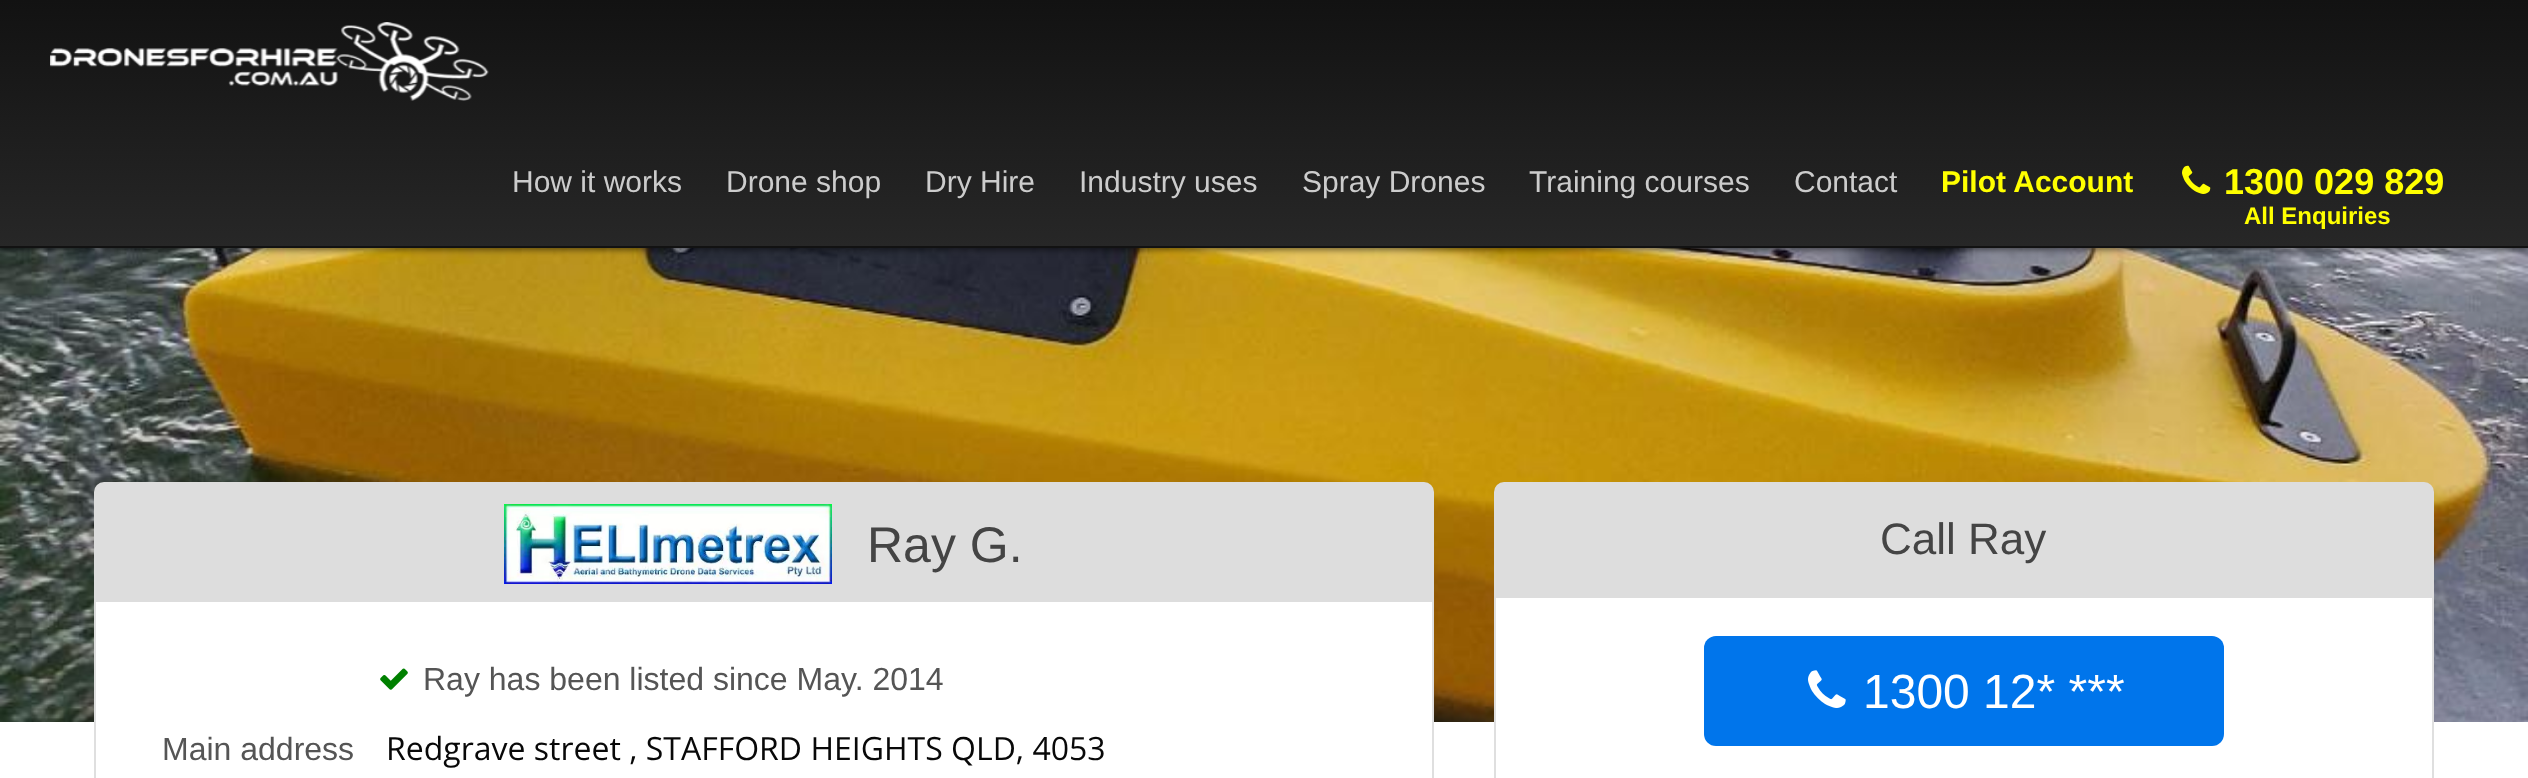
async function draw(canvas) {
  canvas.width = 2528
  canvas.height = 778
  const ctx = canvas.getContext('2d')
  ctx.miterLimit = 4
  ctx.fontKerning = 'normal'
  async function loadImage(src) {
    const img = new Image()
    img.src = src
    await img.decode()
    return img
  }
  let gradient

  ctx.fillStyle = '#fff'
  ctx.fillRect(0, 0, 2528, 778)
  ctx.drawImage(await loadImage('image2.png'), 0, 248, 2528, 474)
  ctx.fillStyle = '#00000080'
  ctx.filter = 'blur(3px)'
  ctx.beginPath()
  ctx.rect(0, 2, 2528, 248)
  ctx.fill()
  ctx.filter = 'none'
  ctx.fillStyle = '#121212'
  ctx.fillRect(0, 246, 2528, 2)
  gradient = ctx.createLinearGradient(0, 0, 0, 246)
  gradient.addColorStop(0, '#121212')
  gradient.addColorStop(1, '#272727')
  ctx.fillStyle = gradient
  ctx.fillRect(0, 0, 2528, 246)
  ctx.drawImage(await loadImage('image0.png'), 50, 22, 439, 79)
  ctx.font = '30px Liberation Sans'
  ctx.fillStyle = '#ccc'
  ctx.fillText('How it works', 512, 192)
  ctx.fillText('Drone shop', 726, 192)
  ctx.fillText('Dry Hire', 925, 192)
  ctx.fillText('Industry uses', 1079, 192)
  ctx.fillText('Spray Drones', 1302, 192)
  ctx.fillText('Training courses', 1529, 192)
  ctx.fillText('Contact', 1794, 192)
  ctx.font = 'bold 30px Liberation Sans'
  ctx.fillStyle = '#ff0'
  ctx.fillText('Pilot Account', 1941, 192)
  ctx.drawImage(await loadImage('image1.png'), 2182, 165, 29, 29)
  ctx.font = 'bold 36px Liberation Sans'
  ctx.fillText('1300 029 829', 2224, 194)
  ctx.font = 'bold 24px Liberation Sans'
  ctx.fillText('All Enquiries', 2244, 224)
  ctx.fillStyle = '#ddd'
  ctx.beginPath()
  ctx.roundRect(94, 482, 1340, 120, [10, 10, 0, 0])
  ctx.fill()
  ctx.drawImage(await loadImage('image3.png'), 504, 504, 328, 80)
  ctx.font = '50px Liberation Sans'
  ctx.fillStyle = '#444'
  ctx.fillText('Ray G.', 867, 562)
  ctx.fillStyle = '#fff'
  ctx.fillRect(96, 602, 1336, 120)
  ctx.fillStyle = '#dfdfdf'
  ctx.fillRect(1432, 602, 2, 176)
  ctx.fillRect(94, 602, 2, 176)
  ctx.drawImage(await loadImage('image4.png'), 380, 668, 28, 22)
  ctx.font = '32px Liberation Sans'
  ctx.fillStyle = '#555'
  ctx.fillText('Ray has been listed since May. 2014', 423, 690)
  ctx.fillText('Main address', 162, 760)
  ctx.font = '32px Open Sans'
  ctx.fillStyle = '#080808'
  ctx.fillText('Redgrave street , STAFFORD HEIGHTS QLD, 4053', 386, 760)
  ctx.fillStyle = '#ddd'
  ctx.beginPath()
  ctx.roundRect(1494, 482, 940, 116, [10, 10, 0, 0])
  ctx.fill()
  ctx.font = '44px Liberation Sans'
  ctx.fillStyle = '#444'
  ctx.fillText('Call Ray', 1880, 554)
  ctx.fillStyle = '#fff'
  ctx.fillRect(1496, 598, 936, 124)
  ctx.fillStyle = '#dfdfdf'
  ctx.fillRect(2432, 598, 2, 180)
  ctx.fillRect(1494, 598, 2, 180)
  ctx.fillStyle = '#0075eb'
  ctx.beginPath()
  ctx.roundRect(1704, 636, 520, 110, 12)
  ctx.fill()
  ctx.drawImage(await loadImage('image5.png'), 1808, 670, 38, 38)
  ctx.font = '48px Liberation Sans'
  ctx.fillStyle = '#fff'
  ctx.fillText('1300 12* ***', 1863, 708)
}

draw(document.querySelector('canvas'))
